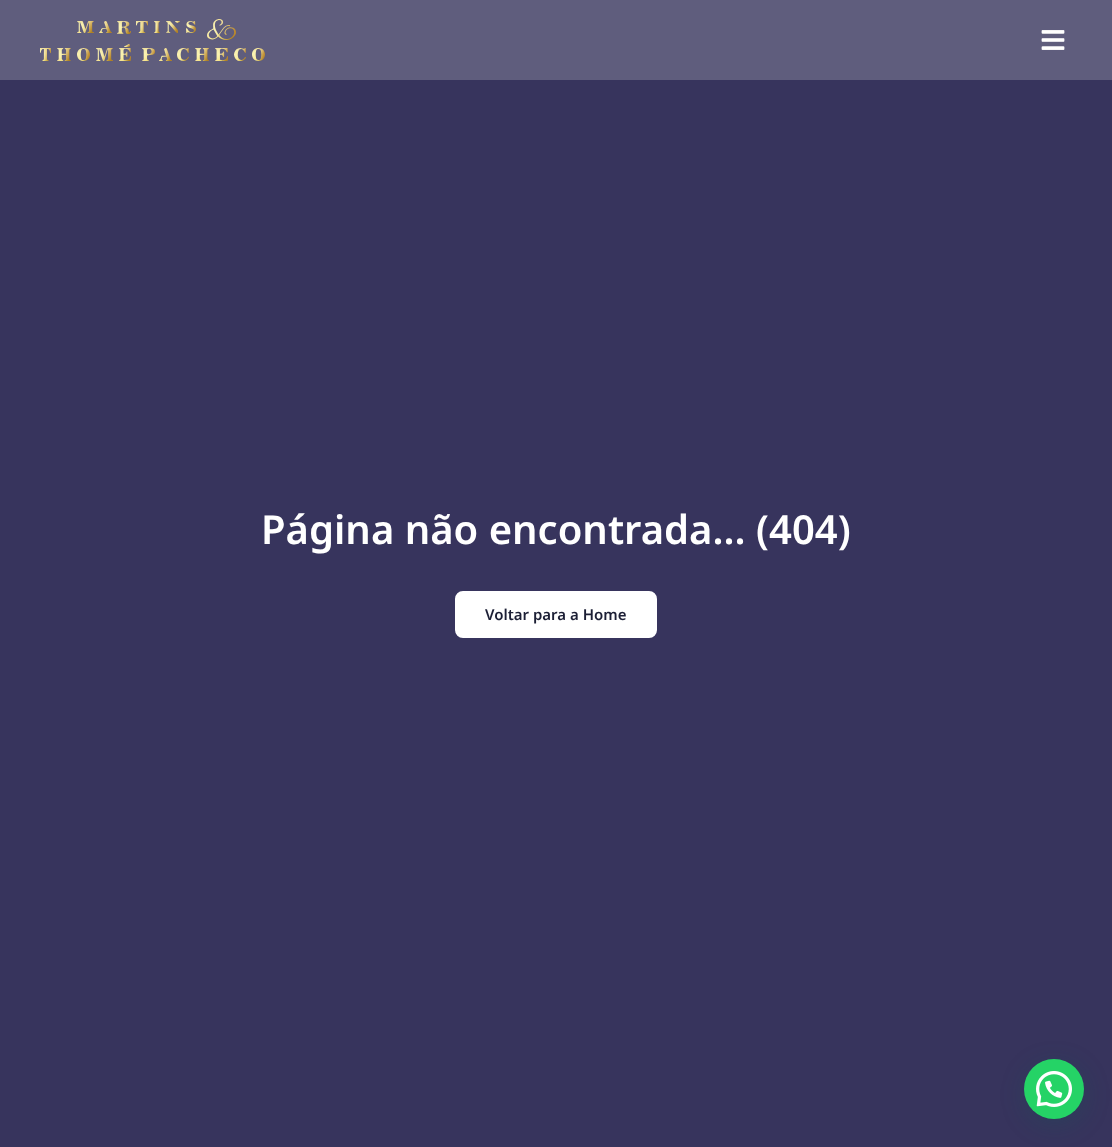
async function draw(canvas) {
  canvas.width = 1112
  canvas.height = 1147
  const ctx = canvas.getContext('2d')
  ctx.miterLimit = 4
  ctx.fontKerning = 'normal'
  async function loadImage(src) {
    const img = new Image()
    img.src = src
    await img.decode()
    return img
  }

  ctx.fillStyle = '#37345d'
  ctx.fillRect(0, 0, 1112, 1147)
  ctx.fillStyle = '#5f5d7d'
  ctx.fillRect(0, 0, 1112, 80)
  ctx.drawImage(await loadImage('image0.png'), 40, 19, 225, 42)
  ctx.drawImage(await loadImage('image1.png'), 1041, 30, 24, 20)
  ctx.font = '600 40px Noto Sans'
  ctx.fillStyle = '#fff'
  ctx.fillText('Página não encontrada... (404)', 261, 544)
  ctx.beginPath()
  ctx.roundRect(456, 592, 200, 45, 7)
  ctx.fill()
  ctx.strokeStyle = '#fff'
  ctx.lineWidth = 2
  ctx.stroke()
  ctx.font = '600 15px Noto Sans'
  ctx.fillStyle = '#1c1f35'
  ctx.fillText('Voltar para a Home', 485, 620)
  ctx.fillStyle = '#075e543d'
  ctx.filter = 'blur(12px)'
  ctx.beginPath()
  ctx.roundRect(1025, 1065, 60, 60, 30)
  ctx.fill()
  ctx.filter = 'none'
  ctx.fillStyle = '#25d366'
  ctx.beginPath()
  ctx.arc(1054, 1089, 30, 0, 2 * Math.PI)
  ctx.fill()
  ctx.drawImage(await loadImage('image2.png'), 1036, 1071, 36, 36)
}

draw(document.querySelector('canvas'))
